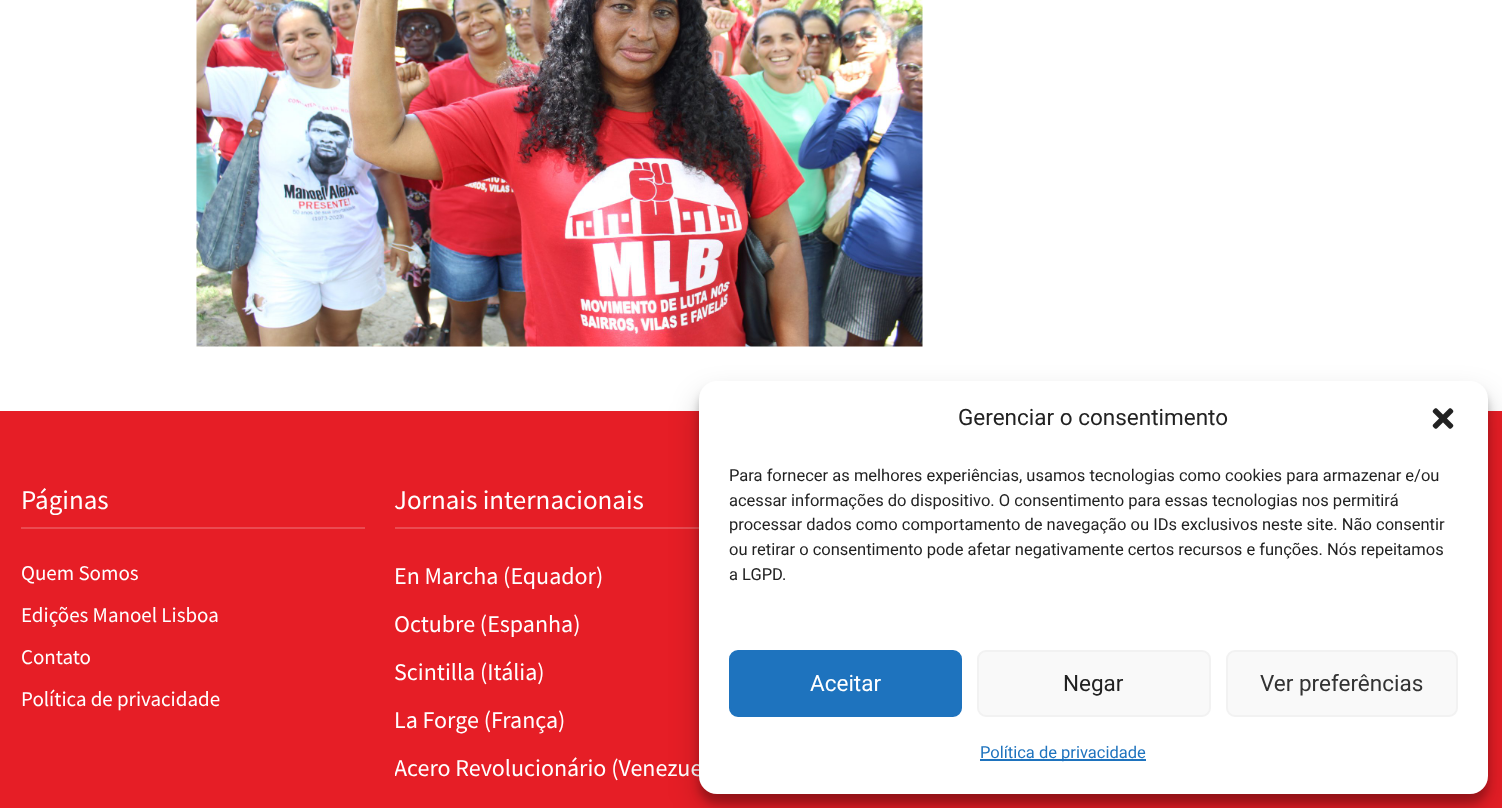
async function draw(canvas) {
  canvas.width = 1502
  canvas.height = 808
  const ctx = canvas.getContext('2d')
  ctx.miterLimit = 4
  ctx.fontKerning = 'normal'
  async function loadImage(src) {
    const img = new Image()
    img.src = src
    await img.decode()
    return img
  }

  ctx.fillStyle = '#fff'
  ctx.fillRect(0, 0, 1502, 808)
  ctx.drawImage(await loadImage('image0.png'), 196, 0, 727, 347)
  ctx.fillStyle = '#e61e26'
  ctx.fillRect(0, 411, 1502, 397)
  ctx.fillStyle = '#eb4b51'
  ctx.fillRect(21, 527, 344, 2)
  ctx.font = '27px Source Sans Pro'
  ctx.fillStyle = '#fff'
  ctx.fillText('Páginas', 21, 509)
  ctx.font = '21px Source Sans Pro'
  ctx.fillText('Quem Somos', 21, 580)
  ctx.fillText('Edições Manoel Lisboa', 21, 622)
  ctx.fillText('Contato', 21, 664)
  ctx.fillText('Política de privacidade', 21, 706)
  ctx.fillStyle = '#eb4b51'
  ctx.fillRect(395, 527, 304, 2)
  ctx.font = '27px Source Sans Pro'
  ctx.fillStyle = '#fff'
  ctx.fillText('Jornais internacionais', 394, 509)
  ctx.font = '24px Source Sans Pro'
  ctx.fillText('En Marcha (Equador)', 394, 584)
  ctx.fillText('Octubre (Espanha)', 394, 632)
  ctx.fillText('Scintilla (Itália)', 394, 680)
  ctx.fillText('La Forge (França)', 394, 728)
  ctx.save()
  ctx.beginPath()
  ctx.rect(395, 551, 342, 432)
  ctx.clip()
  ctx.fillText('Acero Revolucionário (Venezue', 394, 776)
  ctx.restore()
  ctx.fillStyle = '#0000003b'
  ctx.filter = 'blur(4.5px)'
  ctx.beginPath()
  ctx.roundRect(699, 390, 789, 413, 18)
  ctx.fill()
  ctx.filter = 'none'
  ctx.fillStyle = '#00000030'
  ctx.filter = 'blur(15px)'
  ctx.beginPath()
  ctx.roundRect(699, 396, 789, 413, 18)
  ctx.fill()
  ctx.filter = 'none'
  ctx.fillStyle = '#fff'
  ctx.beginPath()
  ctx.roundRect(699, 381, 789, 413, 18)
  ctx.fill()
  ctx.font = '22.5px Roboto'
  ctx.fillStyle = '#222'
  ctx.fillText('Gerenciar o consentimento', 958, 425)
  ctx.drawImage(await loadImage('image1.png'), 1432, 408, 22, 21)
  ctx.font = '16.5px Roboto'
  ctx.fillText('Para fornecer as melhores experiências, usamos tecnologias como cookies para armazenar e/ou', 729, 481)
  ctx.fillText('acessar informações do dispositivo. O consentimento para essas tecnologias nos permitirá', 729, 506)
  ctx.fillText('processar dados como comportamento de navegação ou IDs exclusivos neste site. Não consentir', 729, 530)
  ctx.fillText('ou retirar o consentimento pode afetar negativamente certos recursos e funções. Nós repeitamos', 729, 555)
  ctx.fillText('a LGPD.', 729, 580)
  ctx.fillStyle = '#1e73be'
  ctx.beginPath()
  ctx.roundRect(730, 651, 231, 65, 8)
  ctx.fill()
  ctx.strokeStyle = '#1e73be'
  ctx.lineWidth = 2
  ctx.stroke()
  ctx.font = '22.5px Roboto'
  ctx.fillStyle = '#fff'
  ctx.fillText('Aceitar', 810, 691)
  ctx.fillStyle = '#f9f9f9'
  ctx.beginPath()
  ctx.roundRect(978, 651, 232, 65, 8)
  ctx.fill()
  ctx.strokeStyle = '#f2f2f2'
  ctx.stroke()
  ctx.fillStyle = '#222'
  ctx.fillText('Negar', 1063, 691)
  ctx.fillStyle = '#f9f9f9'
  ctx.beginPath()
  ctx.roundRect(1227, 651, 230, 65, 8)
  ctx.fill()
  ctx.stroke()
  ctx.fillStyle = '#333'
  ctx.fillText('Ver preferências', 1260, 691)
  ctx.fillStyle = '#1e73be'
  ctx.fillRect(980, 759, 166, 2)
  ctx.font = '16.5px Roboto'
  ctx.fillText('Política de privacidade', 980, 758)
}

draw(document.querySelector('canvas'))
